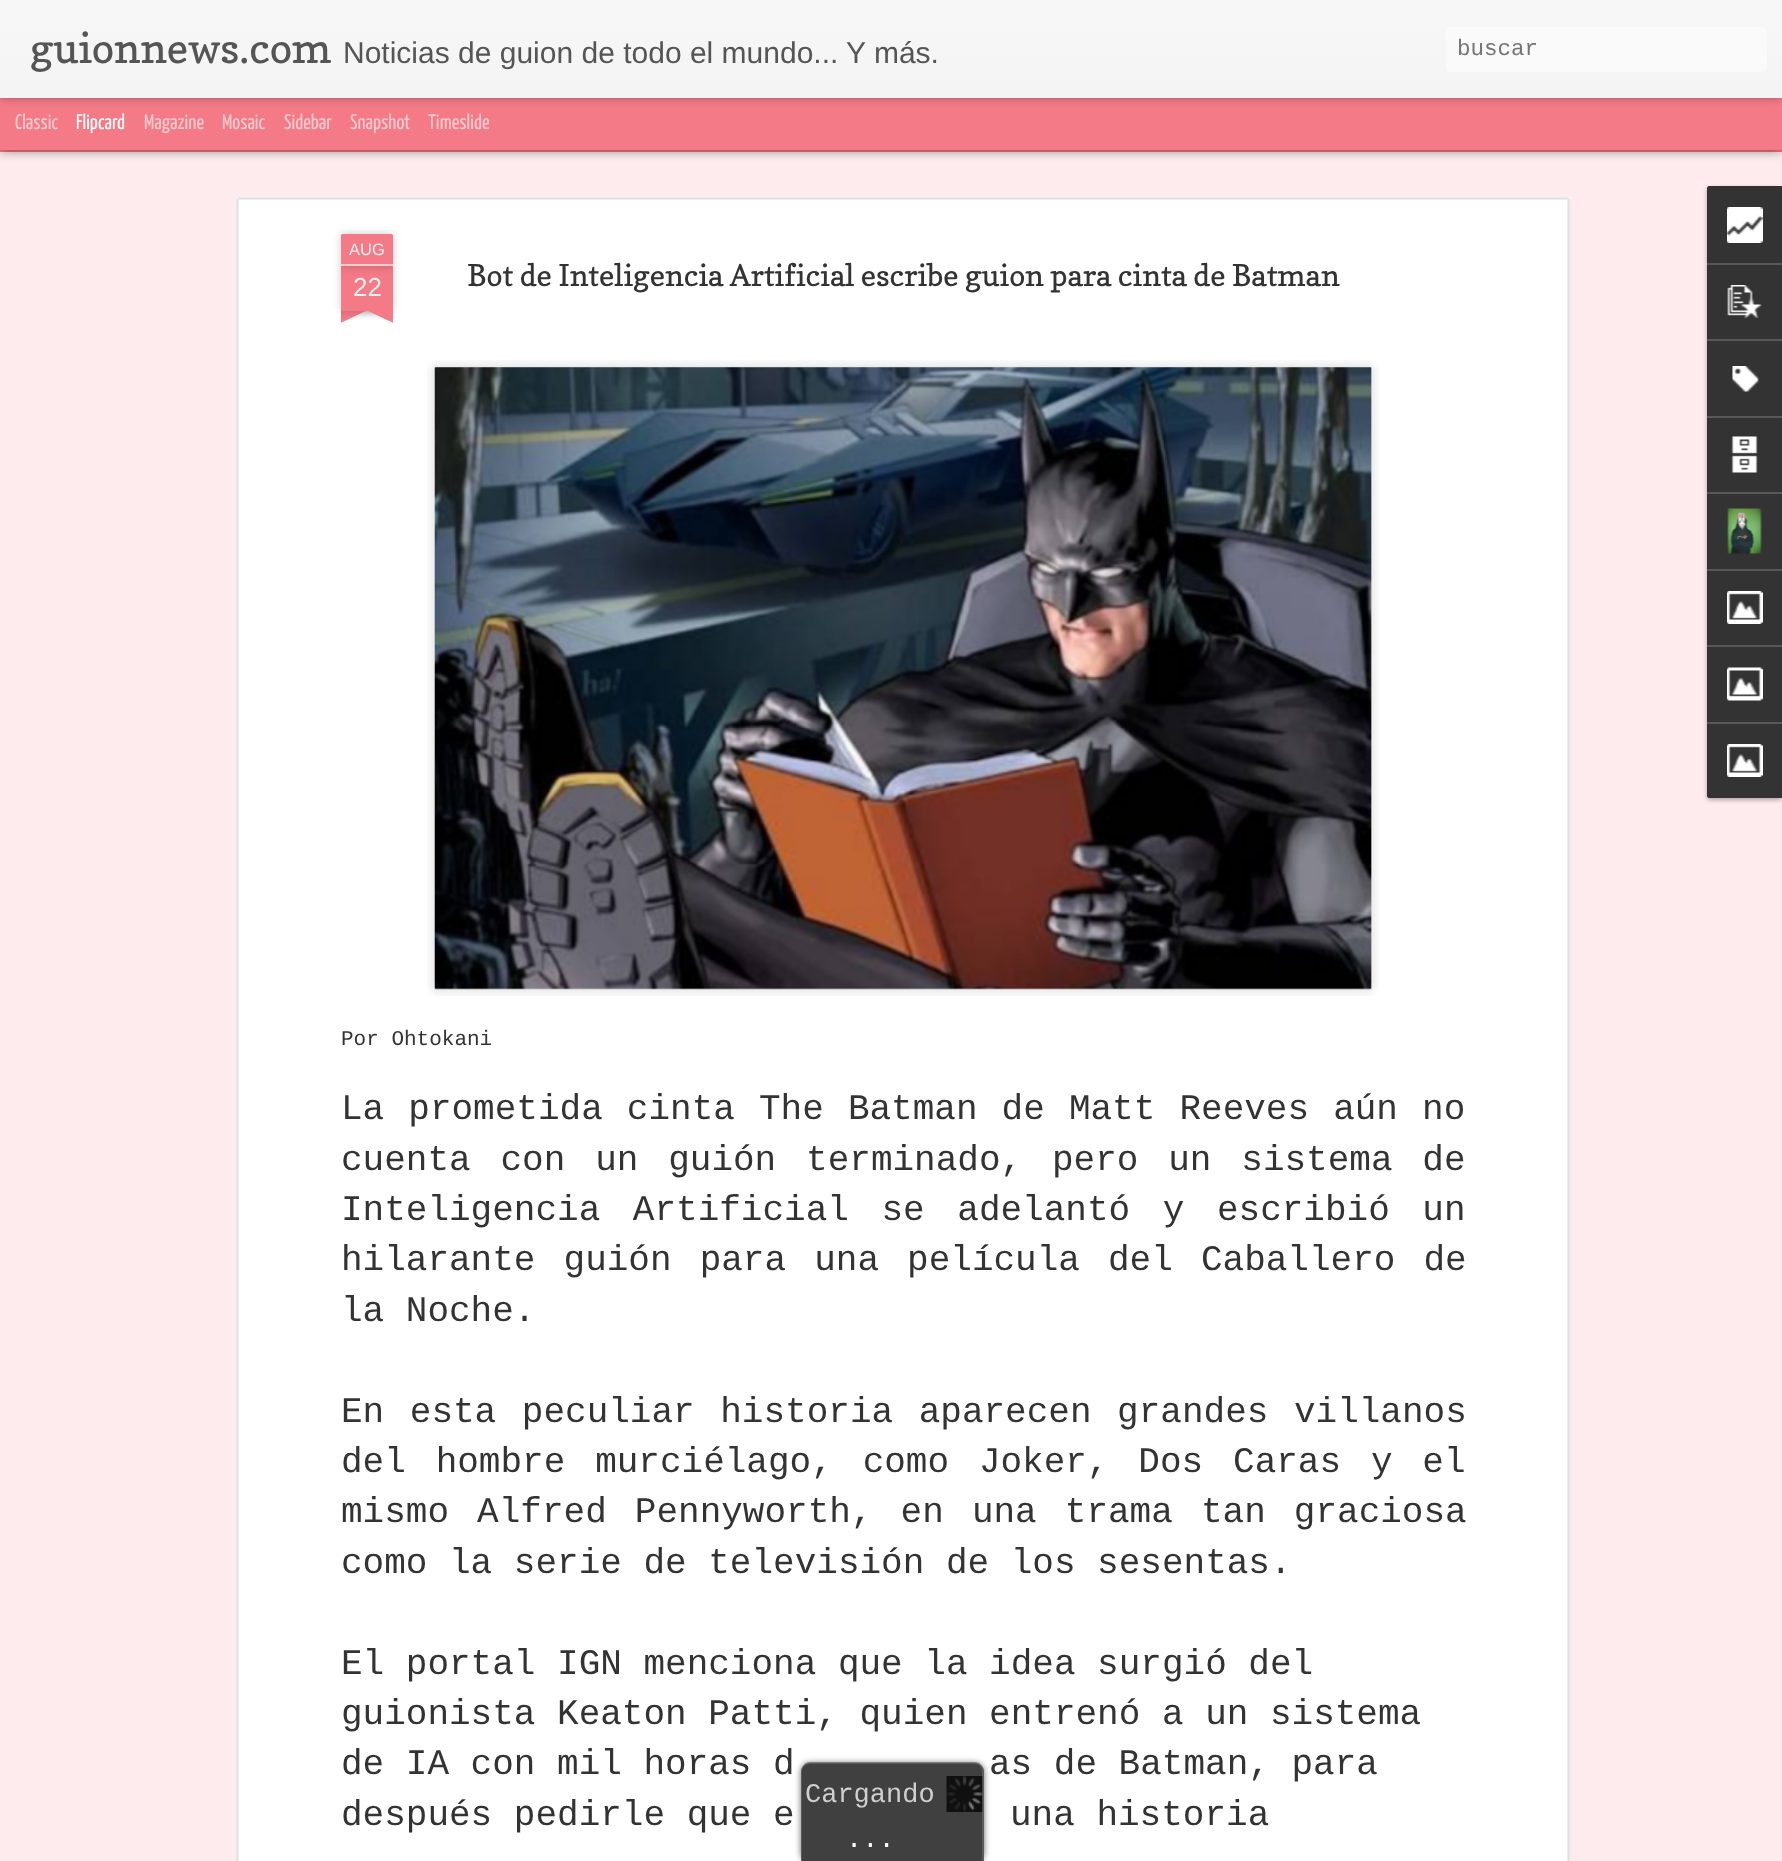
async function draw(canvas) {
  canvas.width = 1782
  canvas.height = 1861
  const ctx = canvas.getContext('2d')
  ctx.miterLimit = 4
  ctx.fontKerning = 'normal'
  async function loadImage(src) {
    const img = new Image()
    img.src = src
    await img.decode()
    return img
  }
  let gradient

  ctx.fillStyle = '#f37a86'
  ctx.fillRect(0, 0, 1782, 1861)
  ctx.fillStyle = '#fdebed'
  ctx.fillRect(0, 152, 1782, 1709)
  ctx.fillStyle = '#00000080'
  ctx.filter = 'blur(6px)'
  ctx.beginPath()
  ctx.rect(0, 98, 1782, 52)
  ctx.fill()
  ctx.filter = 'none'
  ctx.fillStyle = '#f37a86'
  ctx.fillRect(0, 98, 1782, 52)
  ctx.fillStyle = '#0000004d'
  ctx.filter = 'blur(4px)'
  ctx.beginPath()
  ctx.rect(0, 0, 1782, 98)
  ctx.fill()
  ctx.filter = 'none'
  gradient = ctx.createLinearGradient(0, 0, 0, 98)
  gradient.addColorStop(0, '#f7f7f7')
  gradient.addColorStop(1, '#f4f4f4')
  ctx.fillStyle = gradient
  ctx.fillRect(0, 0, 1782, 98)
  ctx.font = '42px Copse'
  ctx.fillStyle = '#555'
  ctx.fillText('guionnews.com', 30, 63)
  ctx.font = '30px Liberation Sans'
  ctx.fillText('Noticias de guion de todo el mundo... Y más.', 343, 63)
  ctx.fillStyle = '#fafafa'
  ctx.beginPath()
  ctx.roundRect(1446, 27, 321, 45, 5)
  ctx.fill()
  ctx.font = '22.5px Liberation Mono'
  ctx.fillStyle = '#757575'
  ctx.fillText('buscar', 1457, 55)
  ctx.font = '200 21px Yanone Kaffeesatz'
  ctx.fillStyle = '#facacf'
  ctx.fillText('Classic', 15, 129)
  ctx.fillStyle = '#fff'
  ctx.fillText('Flipcard', 76, 129)
  ctx.fillStyle = '#facacf'
  ctx.fillText('Magazine', 144, 129)
  ctx.fillText('Mosaic', 222, 129)
  ctx.fillText('Sidebar', 284, 129)
  ctx.fillText('Snapshot', 350, 129)
  ctx.fillText('Timeslide', 428, 129)
  ctx.fillStyle = '#fff'
  ctx.fillRect(236, 197, 1335, 1664)
  ctx.drawImage(await loadImage('image0.png'), 236, 197, 1335, 1664)
  ctx.fillStyle = '#00000033'
  ctx.filter = 'blur(4px)'
  ctx.beginPath()
  ctx.rect(341, 266, 52, 45)
  ctx.fill()
  ctx.filter = 'none'
  ctx.fillStyle = '#f37a86'
  ctx.fillRect(341, 266, 52, 45)
  ctx.fillStyle = '#00000033'
  ctx.filter = 'blur(4px)'
  ctx.beginPath()
  ctx.roundRect(341, 234, 52, 32, 1.5)
  ctx.fill()
  ctx.filter = 'none'
  ctx.fillStyle = '#f37a86'
  ctx.beginPath()
  ctx.roundRect(341, 234, 52, 32, [1.5, 1.5, 0, 0])
  ctx.fill()
  ctx.fillStyle = '#facacf'
  ctx.fillRect(341, 264, 52, 2)
  ctx.font = '16.5px Liberation Sans'
  ctx.fillStyle = '#eee'
  ctx.fillText('AUG', 349, 255)
  ctx.font = '26px Liberation Sans'
  ctx.fillText('22', 353, 296)
  ctx.save()
  ctx.beginPath()
  ctx.rect(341, 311, 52, 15)
  ctx.clip()
  ctx.fillStyle = '#00000033'
  ctx.filter = 'blur(4px)'
  ctx.beginPath()
  ctx.rect(327, 296, 75, 15)
  ctx.fill()
  ctx.filter = 'none'
  ctx.restore()
  ctx.save()
  ctx.beginPath()
  ctx.rect(341, 311, 52, 15)
  ctx.clip()
  ctx.fillStyle = '#f37a86'
  ctx.beginPath()
  ctx.moveTo(327, 312)
  ctx.lineTo(395, 280)
  ctx.lineTo(402, 294)
  ctx.lineTo(334, 326)
  ctx.closePath()
  ctx.fill()
  ctx.restore()
  ctx.save()
  ctx.beginPath()
  ctx.rect(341, 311, 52, 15)
  ctx.clip()
  ctx.fillStyle = '#00000033'
  ctx.filter = 'blur(4px)'
  ctx.beginPath()
  ctx.rect(332, 296, 75, 15)
  ctx.fill()
  ctx.filter = 'none'
  ctx.restore()
  ctx.save()
  ctx.beginPath()
  ctx.rect(341, 311, 52, 15)
  ctx.clip()
  ctx.fillStyle = '#f37a86'
  ctx.beginPath()
  ctx.moveTo(338, 280)
  ctx.lineTo(406, 312)
  ctx.lineTo(400, 326)
  ctx.lineTo(332, 294)
  ctx.closePath()
  ctx.fill()
  ctx.restore()
  ctx.font = '30px Copse'
  ctx.fillStyle = '#333'
  ctx.fillText('Bot de Inteligencia Artificial escribe guion para cinta de Batman', 467, 286)
  ctx.drawImage(await loadImage('image1.png'), 427, 360, 952, 636)
  ctx.drawImage(await loadImage('image2.png'), 434, 367, 938, 623)
  ctx.font = '21px Liberation Mono'
  ctx.fillText('Por Ohtokani', 341, 1045)
  ctx.wordSpacing = '2.5px'
  ctx.font = '36px Liberation Mono'
  ctx.fillText('La prometida cinta The Batman de Matt Reeves aún no', 341, 1119)
  ctx.wordSpacing = '8.25px'
  ctx.fillText('cuenta con un guión terminado, pero un sistema de', 341, 1170)
  ctx.wordSpacing = '11px'
  ctx.fillText('Inteligencia Artificial se adelantó y escribió un', 341, 1220)
  ctx.wordSpacing = '6.5px'
  ctx.fillText('hilarante guión para una película del Caballero de', 341, 1270)
  ctx.wordSpacing = '0px'
  ctx.fillText('la Noche.', 341, 1321)
  ctx.wordSpacing = '4px'
  ctx.fillText('En esta peculiar historia aparecen grandes villanos', 341, 1422)
  ctx.wordSpacing = '8.25px'
  ctx.fillText('del hombre murciélago, como Joker, Dos Caras y el', 341, 1472)
  ctx.wordSpacing = '6.5px'
  ctx.fillText('mismo Alfred Pennyworth, en una trama tan graciosa', 341, 1522)
  ctx.wordSpacing = '0px'
  ctx.fillText('como la serie de televisión de los sesentas.', 341, 1573)
  ctx.fillText('El portal IGN menciona que la idea surgió del', 341, 1674)
  ctx.fillText('guionista Keaton Patti, quien entrenó a un sistema', 341, 1724)
  ctx.fillText('de IA con mil horas d', 341, 1774)
  ctx.fillText('as de Batman, para', 989, 1774)
  ctx.fillText('después pedirle que e', 341, 1825)
  ctx.fillText('una historia', 1010, 1825)
  ctx.fillStyle = '#0000004d'
  ctx.filter = 'blur(2px)'
  ctx.beginPath()
  ctx.roundRect(1707, 188, 75, 612, 3)
  ctx.fill()
  ctx.filter = 'none'
  ctx.fillStyle = '#333'
  ctx.beginPath()
  ctx.roundRect(1707, 186, 75, 612, [3, 0, 0, 3])
  ctx.fill()
  ctx.beginPath()
  ctx.roundRect(1707, 186, 75, 77, [3, 0, 0, 0])
  ctx.fill()
  ctx.drawImage(await loadImage('image3.png'), 1727, 207, 36, 36)
  ctx.fillStyle = '#585858'
  ctx.fillRect(1707, 263, 75, 2)
  ctx.drawImage(await loadImage('image4.png'), 1727, 285, 35, 33)
  ctx.fillRect(1707, 339, 75, 2)
  ctx.drawImage(await loadImage('image5.png'), 1732, 366, 27, 26)
  ctx.fillRect(1707, 416, 75, 2)
  ctx.drawImage(await loadImage('image6.png'), 1731, 436, 27, 37)
  ctx.fillRect(1707, 492, 75, 2)
  ctx.drawImage(await loadImage('image7.png'), 1727, 508, 35, 46)
  ctx.fillRect(1707, 569, 75, 2)
  ctx.drawImage(await loadImage('image8.png'), 1727, 591, 36, 33)
  ctx.fillRect(1707, 645, 75, 2)
  ctx.drawImage(await loadImage('image9.png'), 1727, 667, 36, 34)
  ctx.fillStyle = '#333'
  ctx.beginPath()
  ctx.roundRect(1707, 722, 75, 76, [0, 0, 0, 3])
  ctx.fill()
  ctx.fillStyle = '#585858'
  ctx.fillRect(1707, 722, 75, 2)
  ctx.drawImage(await loadImage('image8.png'), 1727, 744, 36, 33)
  ctx.save()
  ctx.beginPath()
  ctx.moveTo(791, 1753)
  ctx.lineTo(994, 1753)
  ctx.lineTo(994, 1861)
  ctx.lineTo(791, 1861)
  ctx.closePath()
  ctx.moveTo(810, 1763)
  ctx.lineTo(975, 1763)
  ctx.bezierCurveTo(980, 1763, 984, 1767, 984, 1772)
  ctx.lineTo(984, 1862)
  ctx.lineTo(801, 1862)
  ctx.lineTo(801, 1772)
  ctx.bezierCurveTo(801, 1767, 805, 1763, 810, 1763)
  ctx.closePath()
  ctx.clip('evenodd')
  ctx.fillStyle = '#333333bf'
  ctx.filter = 'blur(3px)'
  ctx.beginPath()
  ctx.roundRect(801, 1763, 183, 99, 9)
  ctx.fill()
  ctx.filter = 'none'
  ctx.restore()
  ctx.fillStyle = '#000000bf'
  ctx.beginPath()
  ctx.moveTo(810, 1763)
  ctx.lineTo(975, 1763)
  ctx.bezierCurveTo(980, 1763, 984, 1767, 984, 1772)
  ctx.lineTo(984, 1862)
  ctx.lineTo(801, 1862)
  ctx.lineTo(801, 1772)
  ctx.bezierCurveTo(801, 1767, 805, 1763, 810, 1763)
  ctx.closePath()
  ctx.fill()
  ctx.fillStyle = '#666666bf'
  ctx.beginPath()
  ctx.moveTo(810, 1762)
  ctx.lineTo(975, 1762)
  ctx.bezierCurveTo(980, 1762, 984, 1767, 984, 1772)
  ctx.lineTo(984, 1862)
  ctx.lineTo(801, 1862)
  ctx.lineTo(801, 1772)
  ctx.bezierCurveTo(801, 1767, 805, 1762, 810, 1762)
  ctx.closePath()
  ctx.moveTo(810, 1764)
  ctx.lineTo(975, 1764)
  ctx.bezierCurveTo(979, 1764, 982, 1767, 982, 1772)
  ctx.lineTo(982, 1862)
  ctx.lineTo(802, 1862)
  ctx.lineTo(802, 1772)
  ctx.bezierCurveTo(802, 1767, 806, 1764, 810, 1764)
  ctx.closePath()
  ctx.fill('evenodd')
  ctx.drawImage(await loadImage('image10.png'), 946, 1776, 37, 36)
  ctx.font = '27px Liberation Mono'
  ctx.fillStyle = '#cfcfcf'
  ctx.fillText('Cargando', 805, 1802)
  ctx.fillStyle = '#fff'
  ctx.fillText('...', 846, 1847)
}

draw(document.querySelector('canvas'))
